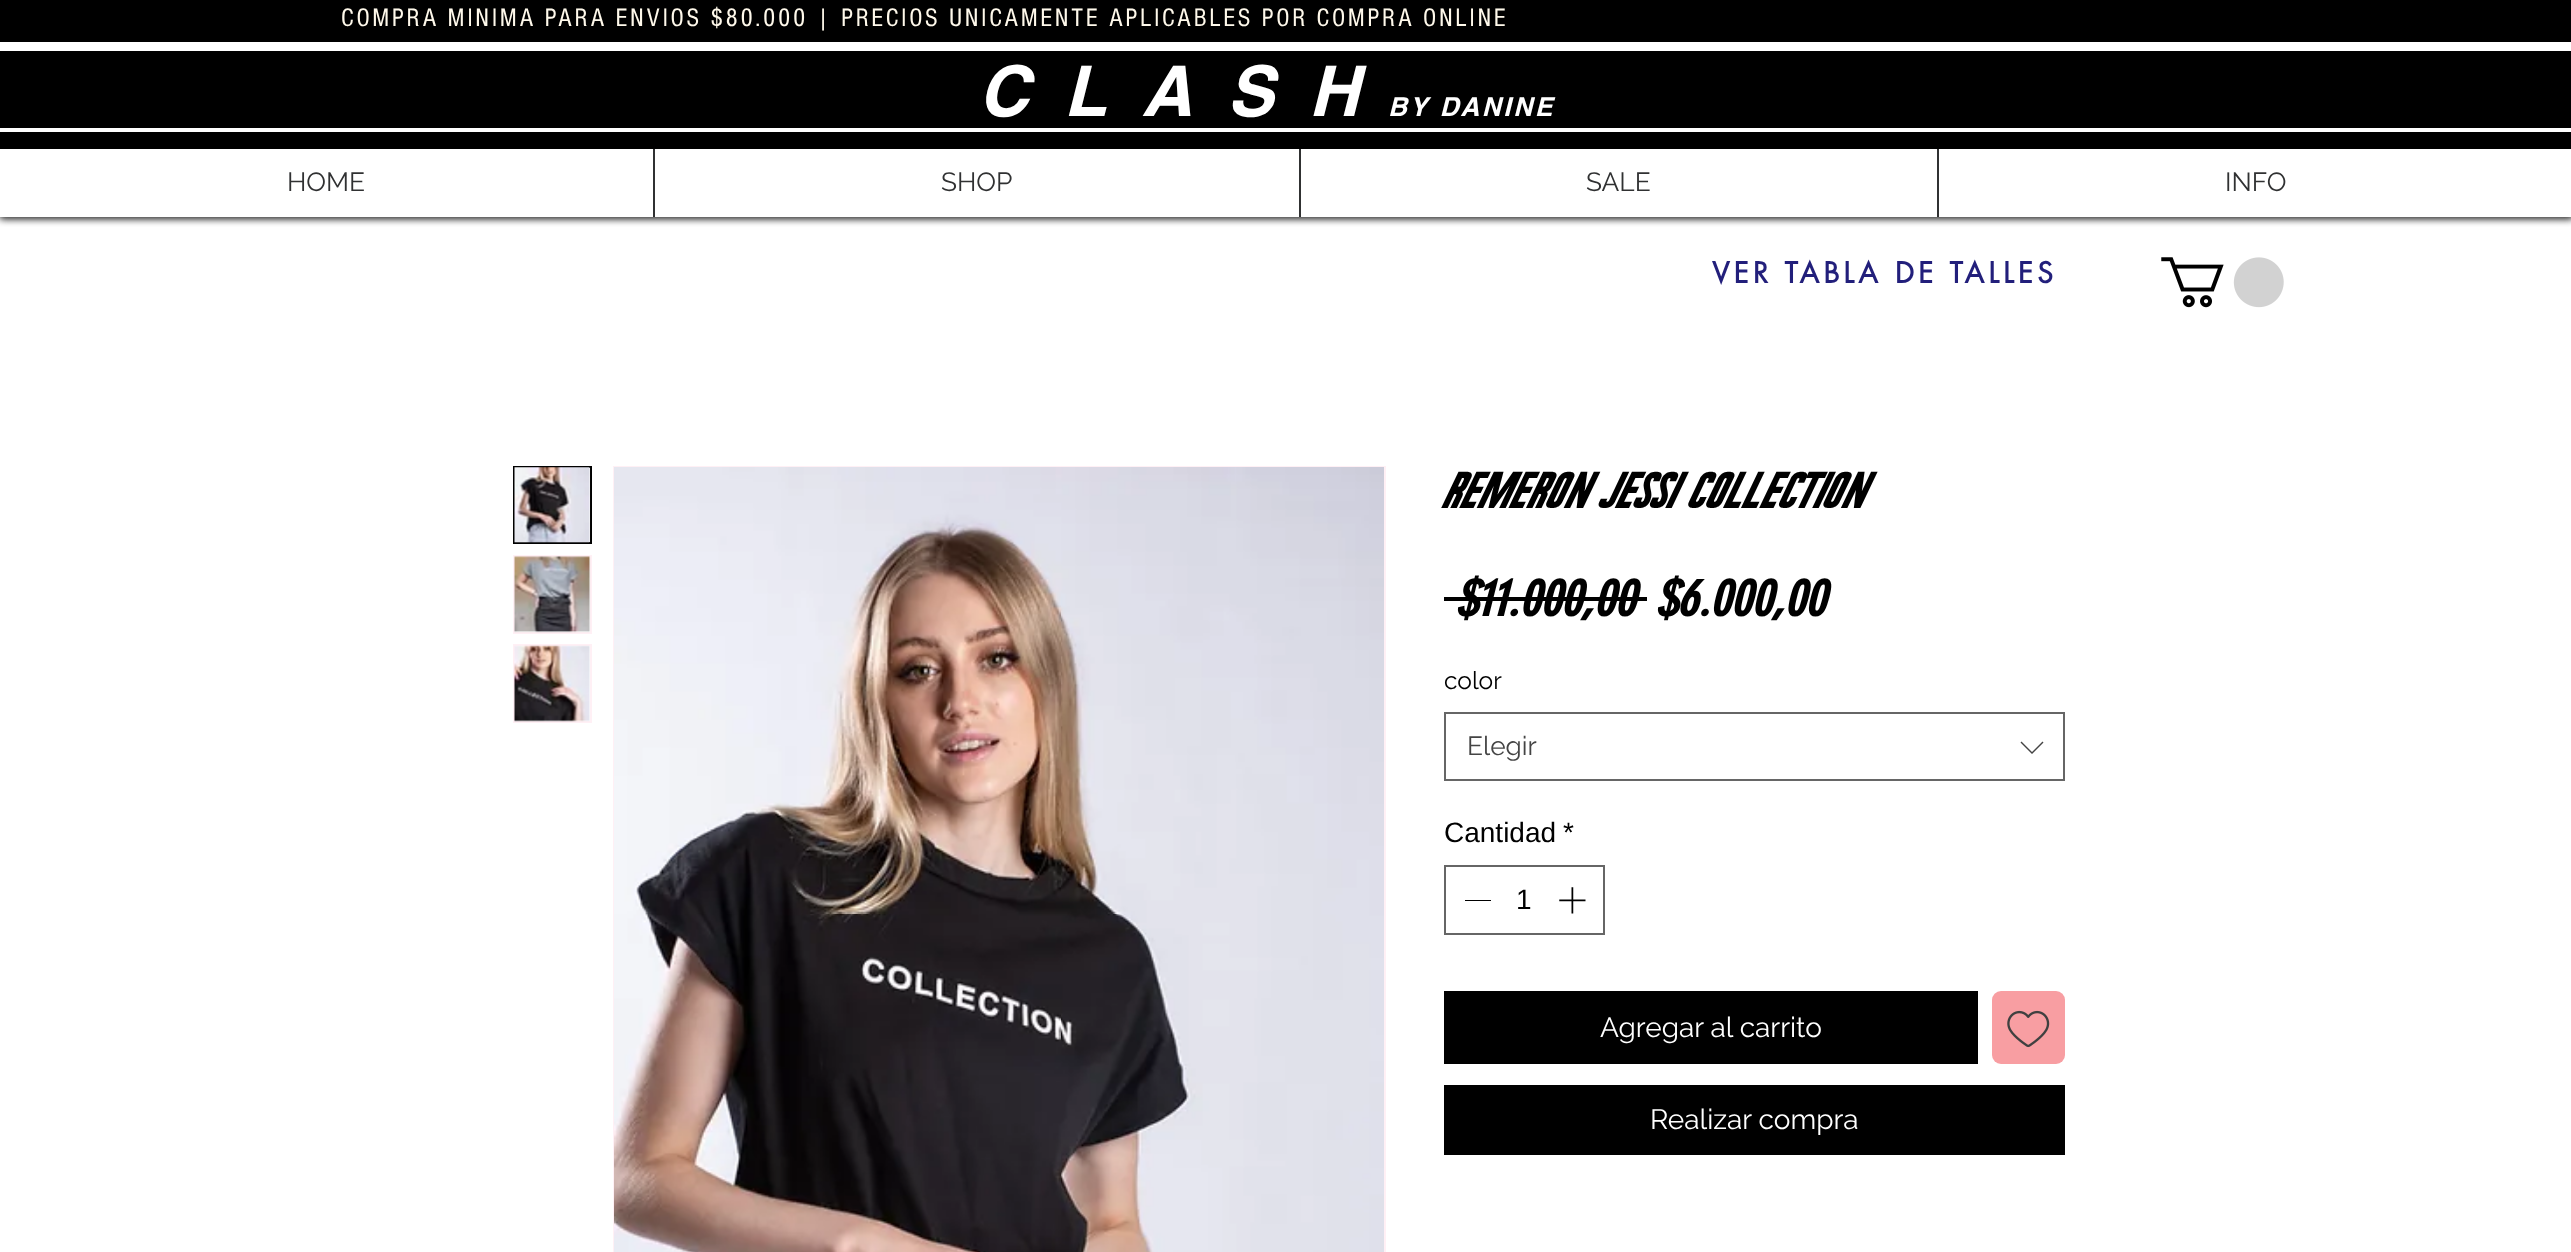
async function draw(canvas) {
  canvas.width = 2571
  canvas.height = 1252
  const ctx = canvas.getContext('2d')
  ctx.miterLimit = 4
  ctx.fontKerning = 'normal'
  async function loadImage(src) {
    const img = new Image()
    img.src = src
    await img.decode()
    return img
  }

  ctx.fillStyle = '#fff'
  ctx.fillRect(0, 0, 2571, 1252)
  ctx.fillStyle = '#000000b3'
  ctx.filter = 'blur(4.5px)'
  ctx.beginPath()
  ctx.rect(0, 0, 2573, 217)
  ctx.fill()
  ctx.filter = 'none'
  ctx.fillStyle = '#000'
  ctx.fillRect(0, 0, 2571, 149)
  ctx.letterSpacing = '2.62px'
  ctx.font = '26.25px "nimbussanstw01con"'
  ctx.fillStyle = '#fff9eb'
  ctx.fillText('COMPRA MINIMA PARA ENVIOS $80.000 | PRECIOS UNICAMENTE APLICABLES POR COMPRA ONLINE', 341, 26)
  ctx.fillStyle = '#fff'
  ctx.fillRect(0, 42, 2571, 9)
  ctx.letterSpacing = '35px'
  ctx.font = 'italic bold 70px helvetica'
  ctx.fillText('CLASH', 978, 116)
  ctx.letterSpacing = '2.62px'
  ctx.font = 'italic bold 26.25px helvetica'
  ctx.fillText('BY DANINE', 1388, 116)
  ctx.fillRect(0, 128, 2571, 4)
  ctx.fillStyle = '#00000099'
  ctx.filter = 'blur(3.5px)'
  ctx.beginPath()
  ctx.rect(0, 151, 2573, 68)
  ctx.fill()
  ctx.filter = 'none'
  ctx.fillStyle = '#fff'
  ctx.fillRect(0, 149, 2571, 68)
  ctx.letterSpacing = '0px'
  ctx.font = '26.25px Raleway'
  ctx.fillStyle = '#303132'
  ctx.fillText('HOME', 287, 191)
  ctx.fillRect(653, 149, 2, 68)
  ctx.fillText('SHOP', 941, 191)
  ctx.fillRect(1299, 149, 2, 68)
  ctx.fillText('SALE', 1586, 191)
  ctx.fillRect(1937, 149, 2, 68)
  ctx.fillText('INFO', 2225, 191)
  ctx.letterSpacing = '4.25px'
  ctx.font = 'bold 28px futura'
  ctx.fillStyle = '#221f7b'
  ctx.fillText('VER TABLA DE TALLES', 1712, 283)
  ctx.drawImage(await loadImage('image0.png'), 2161, 257, 123, 51)
  ctx.strokeStyle = '#000'
  ctx.lineWidth = 2
  ctx.strokeRect(514, 467, 77, 76)
  ctx.drawImage(await loadImage('image1.png'), 514, 467, 77, 76)
  ctx.strokeStyle = '#fff0f5'
  ctx.strokeRect(514, 556, 77, 77)
  ctx.drawImage(await loadImage('image2.png'), 514, 556, 77, 77)
  ctx.strokeRect(514, 645, 77, 77)
  ctx.drawImage(await loadImage('image3.png'), 514, 645, 76, 77)
  ctx.strokeRect(614, 467, 771, 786)
  ctx.drawImage(await loadImage('image4.png'), 614, 467, 770, 785)
  ctx.letterSpacing = '0px'
  ctx.font = 'italic 50.75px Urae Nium'
  ctx.fillStyle = '#000'
  ctx.fillText('Remeron Jessi COLLECTION', 1444, 508)
  ctx.font = 'italic bold 50.75px "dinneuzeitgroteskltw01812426"'
  ctx.fillText('$11.000,00', 1456, 616)
  ctx.fillRect(1444, 597, 203, 4)
  ctx.fillText('$6.000,00', 1656, 616)
  ctx.font = '24.5px Raleway'
  ctx.fillText('color', 1444, 689)
  ctx.strokeStyle = '#666'
  ctx.strokeRect(1445, 713, 619, 67)
  ctx.font = '26.25px Raleway'
  ctx.fillStyle = '#444'
  ctx.fillText('Elegir', 1467, 755)
  ctx.beginPath()
  ctx.moveTo(2042.5, 741.5)
  ctx.lineTo(2043.5, 742.5)
  ctx.lineTo(2032, 754)
  ctx.lineTo(2020.5, 742.5)
  ctx.lineTo(2021.5, 741.5)
  ctx.lineTo(2032, 752)
  ctx.closePath()
  ctx.fill('evenodd')
  ctx.font = '28px Liberation Sans'
  ctx.fillStyle = '#000'
  ctx.fillText('Cantidad', 1444, 842)
  ctx.fillText('*', 1563, 842)
  ctx.strokeRect(1445, 866, 159, 68)
  ctx.fillRect(1465, 900, 26, 1)
  ctx.fillText('1', 1516, 909)
  ctx.drawImage(await loadImage('image5.png'), 1559, 887, 27, 27)
  ctx.fillRect(1444, 991, 534, 73)
  ctx.font = '28px Raleway'
  ctx.fillStyle = '#fff'
  ctx.fillText('Agregar al carrito', 1600, 1037)
  ctx.fillStyle = '#f89ea2'
  ctx.beginPath()
  ctx.roundRect(1992, 991, 73, 73, 9)
  ctx.fill()
  ctx.drawImage(await loadImage('image6.png'), 2007, 1010, 43, 38)
  ctx.fillStyle = '#000'
  ctx.fillRect(1444, 1085, 621, 70)
  ctx.fillStyle = '#fff'
  ctx.fillText('Realizar compra', 1650, 1129)
}

draw(document.querySelector('canvas'))
